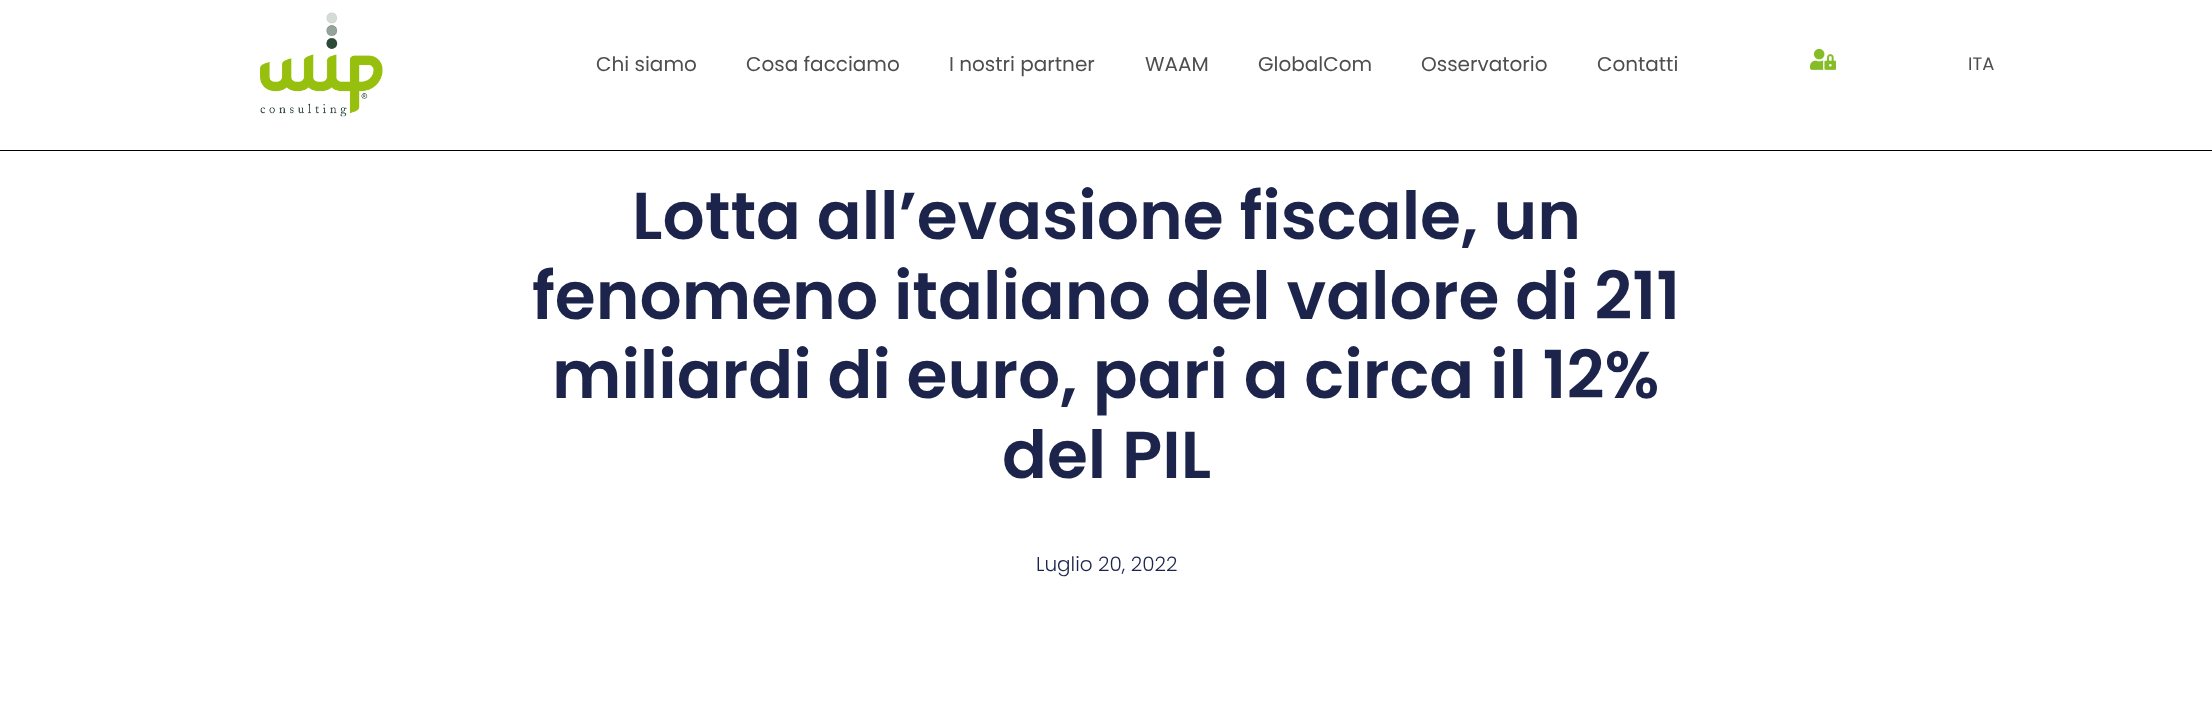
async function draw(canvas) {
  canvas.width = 2212
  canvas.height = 701
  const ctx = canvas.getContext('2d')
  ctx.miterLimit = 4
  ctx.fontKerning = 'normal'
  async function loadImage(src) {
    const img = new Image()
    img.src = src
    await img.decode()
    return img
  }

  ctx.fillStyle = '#fff'
  ctx.fillRect(0, 0, 2212, 701)
  ctx.fillStyle = '#000'
  ctx.fillRect(0, 150, 2212, 1)
  ctx.drawImage(await loadImage('image0.png'), 260, 12, 123, 105)
  ctx.font = '20px Poppins'
  ctx.fillStyle = '#4e4e4e'
  ctx.fillText('Chi siamo', 596, 71)
  ctx.fillText('Cosa facciamo', 746, 71)
  ctx.fillText('I nostri partner', 949, 71)
  ctx.fillText('WAAM', 1145, 71)
  ctx.fillText('GlobalCom', 1258, 71)
  ctx.fillText('Osservatorio', 1421, 71)
  ctx.fillText('Contatti', 1597, 71)
  ctx.drawImage(await loadImage('image1.png'), 1810, 48, 26, 22)
  ctx.font = '18px Poppins'
  ctx.fillText('ITA', 1968, 70)
  ctx.font = '600 66.25px Poppins'
  ctx.fillStyle = '#1c244b'
  ctx.fillText('Lotta all’evasione fiscale, un', 632, 239)
  ctx.fillText('fenomeno italiano del valore di 211', 532, 319)
  ctx.fillText('miliardi di euro, pari a circa il 12%', 552, 398)
  ctx.fillText('del PIL', 1002, 478)
  ctx.font = '300 20px Poppins'
  ctx.fillText('Luglio 20, 2022', 1036, 571)
}

draw(document.querySelector('canvas'))
